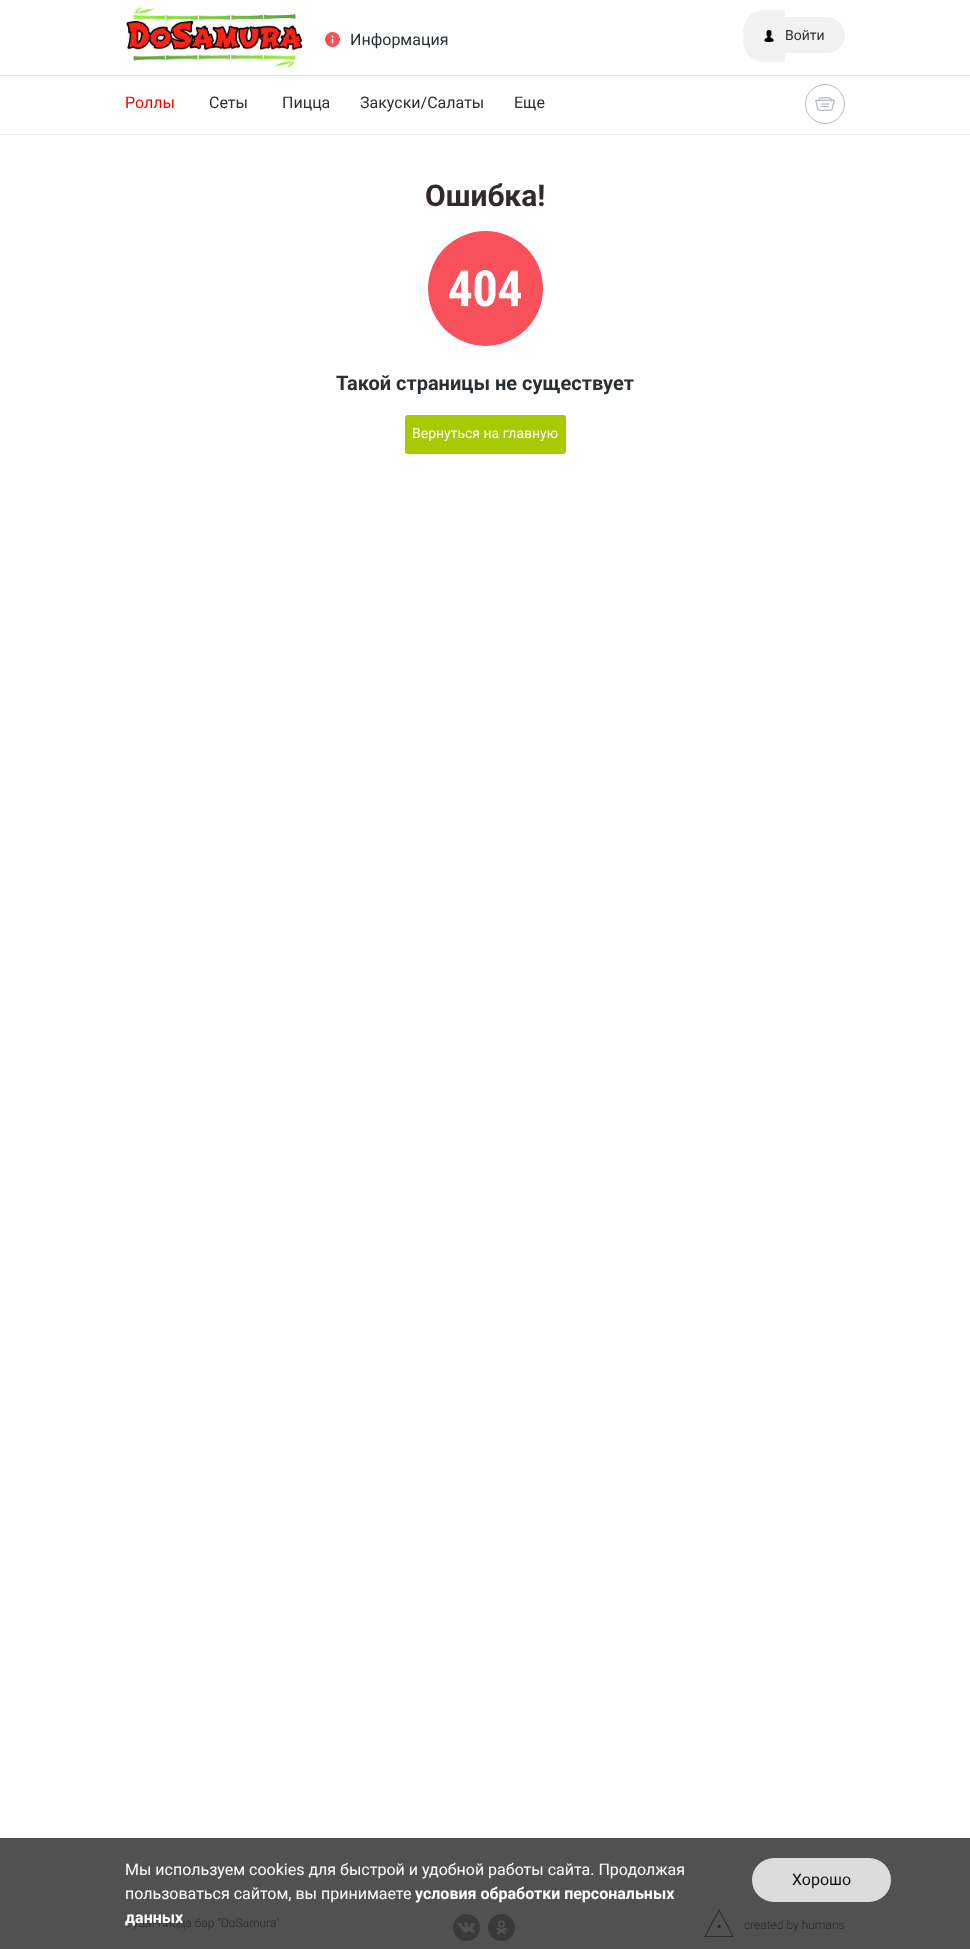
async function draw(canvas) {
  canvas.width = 970
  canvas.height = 1949
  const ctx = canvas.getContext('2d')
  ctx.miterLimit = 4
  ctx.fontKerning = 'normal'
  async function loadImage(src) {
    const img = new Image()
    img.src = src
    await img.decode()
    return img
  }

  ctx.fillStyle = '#fff'
  ctx.fillRect(0, 0, 970, 1949)
  ctx.fillStyle = '#515151'
  ctx.fillRect(0, 1838, 970, 111)
  ctx.drawImage(await loadImage('image0.png'), 126, 6, 177, 63)
  ctx.drawImage(await loadImage('image1.png'), 325, 32, 15, 15)
  ctx.font = '16px Roboto'
  ctx.fillStyle = '#292f32'
  ctx.fillText('Информация', 350, 45)
  ctx.fillStyle = '#f2f2f2'
  ctx.beginPath()
  ctx.roundRect(743, 10, 42, 52, [21, 0, 0, 21])
  ctx.fill()
  ctx.beginPath()
  ctx.roundRect(785, 17, 60, 36, [0, 18, 18, 0])
  ctx.fill()
  ctx.drawImage(await loadImage('image2.png'), 764, 30, 10, 12)
  ctx.font = '14px Roboto'
  ctx.fillStyle = '#292f32'
  ctx.fillText('Войти', 785, 40)
  ctx.fillStyle = '#e6e6e6'
  ctx.fillRect(0, 75, 970, 1)
  ctx.fillRect(0, 134, 970, 1)
  ctx.font = '16px Roboto'
  ctx.fillStyle = '#f00'
  ctx.fillText('Роллы', 125, 108)
  ctx.fillStyle = '#292f32'
  ctx.fillText('Сеты', 209, 108)
  ctx.fillText('Пицца', 282, 108)
  ctx.fillText('Закуски/Салаты', 360, 108)
  ctx.fillText('Еще', 514, 108)
  ctx.beginPath()
  ctx.arc(825, 104, 19.5, 0, 2 * Math.PI)
  ctx.strokeStyle = '#b2bbbd'
  ctx.stroke()
  ctx.drawImage(await loadImage('image3.png'), 815, 97, 20, 14)
  ctx.font = 'bold 30px Roboto'
  ctx.fillStyle = '#32292a'
  ctx.fillText('Ошибка!', 425, 206)
  ctx.fillStyle = '#f8515c'
  ctx.beginPath()
  ctx.arc(485.5, 288.5, 57.5, 0, 2 * Math.PI)
  ctx.fill()
  ctx.drawImage(await loadImage('image4.png'), 449, 270, 72, 37)
  ctx.font = 'bold 20px Roboto'
  ctx.fillStyle = '#292f32'
  ctx.fillText('Такой страницы не существует', 336, 390)
  ctx.fillStyle = '#a8ca00'
  ctx.beginPath()
  ctx.roundRect(405, 415, 161, 39, 3)
  ctx.fill()
  ctx.font = '14px Roboto'
  ctx.fillStyle = '#fff'
  ctx.fillText('Вернуться на главную', 412, 438)
  ctx.font = '300 12px Roboto'
  ctx.fillStyle = '#29292a'
  ctx.fillText('Суши-пицца бар "DoSamura"', 125, 1927)
  ctx.drawImage(await loadImage('image5.png'), 453, 1914, 27, 27)
  ctx.drawImage(await loadImage('image6.png'), 488, 1914, 27, 27)
  ctx.drawImage(await loadImage('image7.png'), 704, 1909, 30, 28)
  ctx.fillText('created by humans', 744, 1929)
  ctx.font = '16px Roboto'
  ctx.fillStyle = '#fff'
  ctx.fillText('Мы используем cookies для быстрой и удобной работы сайта. Продолжая', 125, 1875)
  ctx.fillText('пользоваться сайтом, вы принимаете', 125, 1899)
  ctx.font = 'bold 16px Roboto'
  ctx.fillText('условия обработки персональных', 415, 1899)
  ctx.fillText('данных', 125, 1923)
  ctx.fillStyle = '#dcdcdc'
  ctx.beginPath()
  ctx.roundRect(752, 1858, 139, 44, 22)
  ctx.fill()
  ctx.font = '16px Roboto'
  ctx.fillStyle = '#101010'
  ctx.fillText('Хорошо', 792, 1885)
}

draw(document.querySelector('canvas'))
